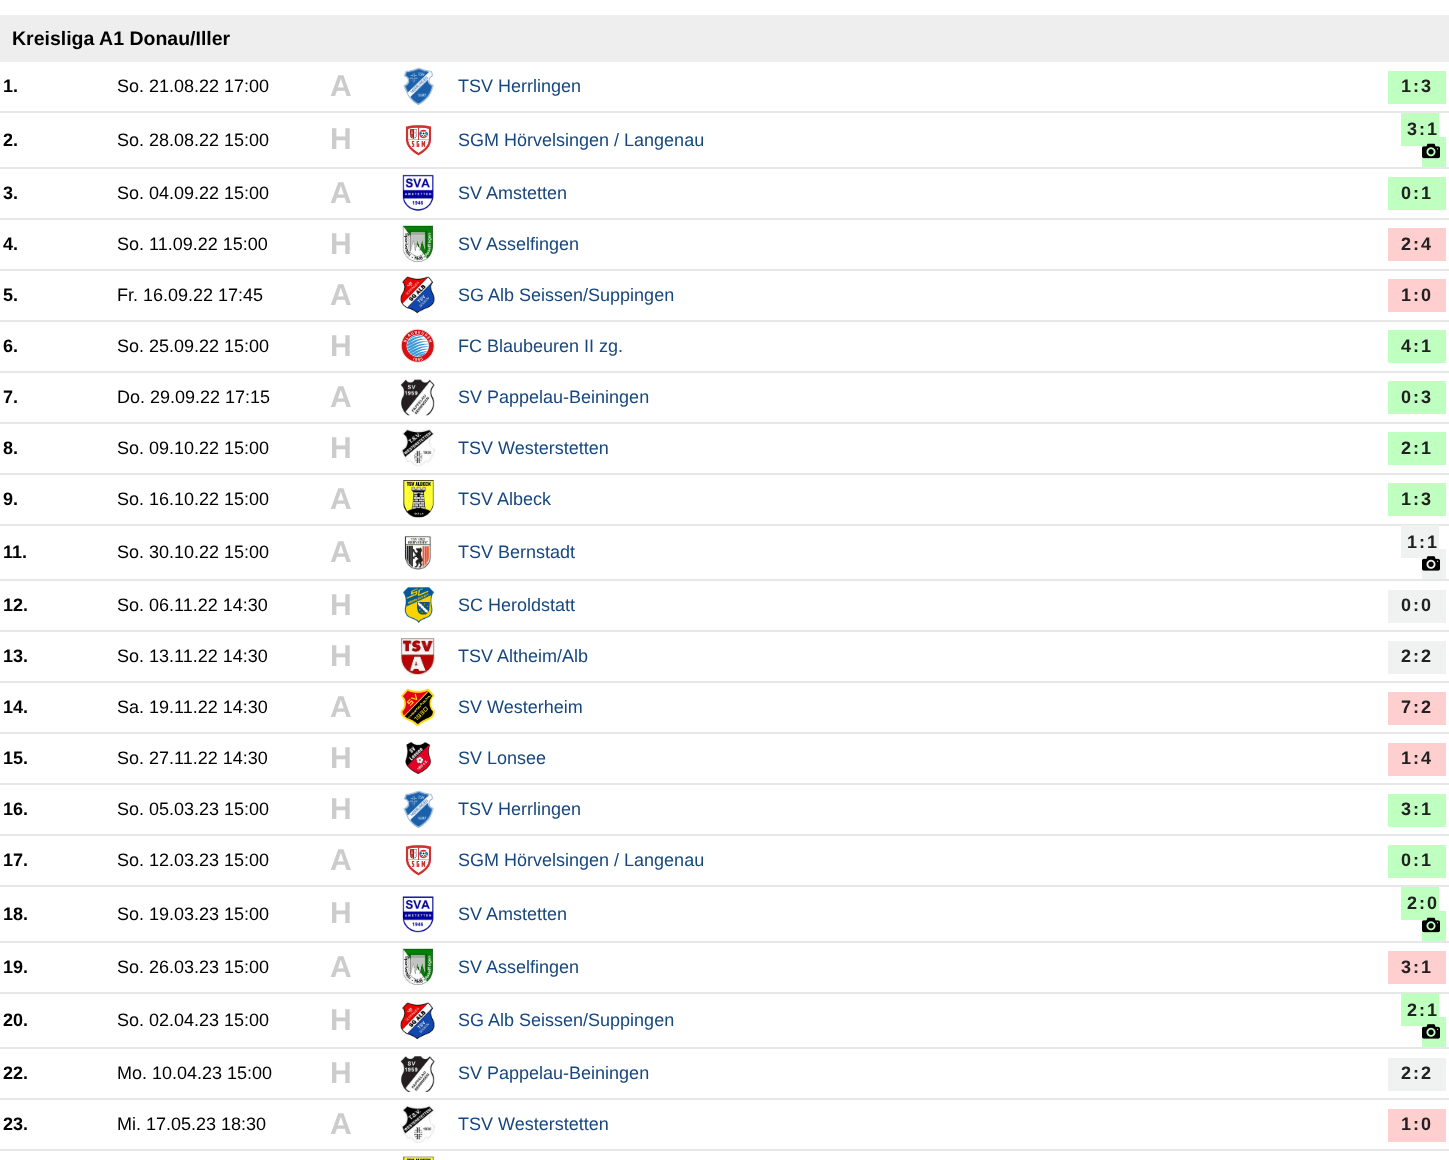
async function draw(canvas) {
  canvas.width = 1449
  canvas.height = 1160
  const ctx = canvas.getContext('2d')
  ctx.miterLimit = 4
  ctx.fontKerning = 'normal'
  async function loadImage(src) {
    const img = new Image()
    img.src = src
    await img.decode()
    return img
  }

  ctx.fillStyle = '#fff'
  ctx.fillRect(0, 0, 1449, 1160)
  ctx.fillStyle = '#eee'
  ctx.fillRect(0, 15, 1449, 47)
  ctx.font = 'bold 19.5px Liberation Sans'
  ctx.fillStyle = '#000'
  ctx.fillText('Kreisliga A1 Donau/Iller', 12, 45)
  ctx.fillStyle = '#e7e7e7'
  ctx.fillRect(0, 111, 1449, 2)
  ctx.font = 'bold 18px Liberation Sans'
  ctx.fillStyle = '#000'
  ctx.fillText('1.', 3, 92)
  ctx.font = '18px Liberation Sans'
  ctx.fillText('So. 21.08.22 17:00', 117, 92)
  ctx.font = 'bold 30px Liberation Sans'
  ctx.fillStyle = '#ccc'
  ctx.fillText('A', 330, 96)
  ctx.drawImage(await loadImage('image0.png'), 403, 67, 31, 38)
  ctx.font = '18px Liberation Sans'
  ctx.fillStyle = '#17477f'
  ctx.fillText('TSV Herrlingen', 458, 92)
  ctx.fillStyle = '#bfffbf'
  ctx.fillRect(1388, 71, 58, 33)
  ctx.letterSpacing = '2px'
  ctx.font = 'bold 18px Liberation Sans'
  ctx.fillStyle = '#212121'
  ctx.fillText('1:3', 1401, 92)
  ctx.fillStyle = '#e7e7e7'
  ctx.fillRect(0, 167, 1449, 2)
  ctx.letterSpacing = '0px'
  ctx.fillStyle = '#000'
  ctx.fillText('2.', 3, 146)
  ctx.font = '18px Liberation Sans'
  ctx.fillText('So. 28.08.22 15:00', 117, 146)
  ctx.font = 'bold 30px Liberation Sans'
  ctx.fillStyle = '#ccc'
  ctx.fillText('H', 330, 149)
  ctx.drawImage(await loadImage('image1.png'), 405, 124, 27, 32)
  ctx.font = '18px Liberation Sans'
  ctx.fillStyle = '#17477f'
  ctx.fillText('SGM Hörvelsingen / Langenau', 458, 146)
  ctx.fillStyle = '#bfffbf'
  ctx.fillRect(1401, 113, 38, 33)
  ctx.fillRect(1422, 137, 24, 30)
  ctx.letterSpacing = '2px'
  ctx.font = 'bold 18px Liberation Sans'
  ctx.fillStyle = '#212121'
  ctx.fillText('3:1', 1407, 135)
  ctx.drawImage(await loadImage('image2.png'), 1422, 143, 18, 16)
  ctx.fillStyle = '#e7e7e7'
  ctx.fillRect(0, 218, 1449, 2)
  ctx.letterSpacing = '0px'
  ctx.fillStyle = '#000'
  ctx.fillText('3.', 3, 199)
  ctx.font = '18px Liberation Sans'
  ctx.fillText('So. 04.09.22 15:00', 117, 199)
  ctx.font = 'bold 30px Liberation Sans'
  ctx.fillStyle = '#ccc'
  ctx.fillText('A', 330, 203)
  ctx.drawImage(await loadImage('image3.png'), 402, 174, 32, 37)
  ctx.font = '18px Liberation Sans'
  ctx.fillStyle = '#17477f'
  ctx.fillText('SV Amstetten', 458, 199)
  ctx.fillStyle = '#bfffbf'
  ctx.fillRect(1388, 177, 58, 33)
  ctx.letterSpacing = '2px'
  ctx.font = 'bold 18px Liberation Sans'
  ctx.fillStyle = '#212121'
  ctx.fillText('0:1', 1401, 199)
  ctx.fillStyle = '#e7e7e7'
  ctx.fillRect(0, 269, 1449, 2)
  ctx.letterSpacing = '0px'
  ctx.fillStyle = '#000'
  ctx.fillText('4.', 3, 250)
  ctx.font = '18px Liberation Sans'
  ctx.fillText('So. 11.09.22 15:00', 117, 250)
  ctx.font = 'bold 30px Liberation Sans'
  ctx.fillStyle = '#ccc'
  ctx.fillText('H', 330, 254)
  ctx.drawImage(await loadImage('image4.png'), 402, 225, 32, 37)
  ctx.font = '18px Liberation Sans'
  ctx.fillStyle = '#17477f'
  ctx.fillText('SV Asselfingen', 458, 250)
  ctx.fillStyle = '#ffcfcf'
  ctx.fillRect(1388, 228, 58, 33)
  ctx.letterSpacing = '2px'
  ctx.font = 'bold 18px Liberation Sans'
  ctx.fillStyle = '#212121'
  ctx.fillText('2:4', 1401, 250)
  ctx.fillStyle = '#e7e7e7'
  ctx.fillRect(0, 320, 1449, 2)
  ctx.letterSpacing = '0px'
  ctx.fillStyle = '#000'
  ctx.fillText('5.', 3, 301)
  ctx.font = '18px Liberation Sans'
  ctx.fillText('Fr. 16.09.22 17:45', 117, 301)
  ctx.font = 'bold 30px Liberation Sans'
  ctx.fillStyle = '#ccc'
  ctx.fillText('A', 330, 305)
  ctx.drawImage(await loadImage('image5.png'), 400, 276, 35, 38)
  ctx.font = '18px Liberation Sans'
  ctx.fillStyle = '#17477f'
  ctx.fillText('SG Alb Seissen/Suppingen', 458, 301)
  ctx.fillStyle = '#ffcfcf'
  ctx.fillRect(1388, 279, 58, 33)
  ctx.letterSpacing = '2px'
  ctx.font = 'bold 18px Liberation Sans'
  ctx.fillStyle = '#212121'
  ctx.fillText('1:0', 1401, 301)
  ctx.fillStyle = '#e7e7e7'
  ctx.fillRect(0, 371, 1449, 2)
  ctx.letterSpacing = '0px'
  ctx.fillStyle = '#000'
  ctx.fillText('6.', 3, 352)
  ctx.font = '18px Liberation Sans'
  ctx.fillText('So. 25.09.22 15:00', 117, 352)
  ctx.font = 'bold 30px Liberation Sans'
  ctx.fillStyle = '#ccc'
  ctx.fillText('H', 330, 356)
  ctx.drawImage(await loadImage('image6.png'), 400, 328, 35, 35)
  ctx.font = '18px Liberation Sans'
  ctx.fillStyle = '#17477f'
  ctx.fillText('FC Blaubeuren II zg.', 458, 352)
  ctx.fillStyle = '#bfffbf'
  ctx.fillRect(1388, 330, 58, 33)
  ctx.letterSpacing = '2px'
  ctx.font = 'bold 18px Liberation Sans'
  ctx.fillStyle = '#212121'
  ctx.fillText('4:1', 1401, 352)
  ctx.fillStyle = '#e7e7e7'
  ctx.fillRect(0, 422, 1449, 2)
  ctx.letterSpacing = '0px'
  ctx.fillStyle = '#000'
  ctx.fillText('7.', 3, 403)
  ctx.font = '18px Liberation Sans'
  ctx.fillText('Do. 29.09.22 17:15', 117, 403)
  ctx.font = 'bold 30px Liberation Sans'
  ctx.fillStyle = '#ccc'
  ctx.fillText('A', 330, 407)
  ctx.drawImage(await loadImage('image7.png'), 400, 379, 35, 37)
  ctx.font = '18px Liberation Sans'
  ctx.fillStyle = '#17477f'
  ctx.fillText('SV Pappelau-Beiningen', 458, 403)
  ctx.fillStyle = '#bfffbf'
  ctx.fillRect(1388, 381, 58, 33)
  ctx.letterSpacing = '2px'
  ctx.font = 'bold 18px Liberation Sans'
  ctx.fillStyle = '#212121'
  ctx.fillText('0:3', 1401, 403)
  ctx.fillStyle = '#e7e7e7'
  ctx.fillRect(0, 473, 1449, 2)
  ctx.letterSpacing = '0px'
  ctx.fillStyle = '#000'
  ctx.fillText('8.', 3, 454)
  ctx.font = '18px Liberation Sans'
  ctx.fillText('So. 09.10.22 15:00', 117, 454)
  ctx.font = 'bold 30px Liberation Sans'
  ctx.fillStyle = '#ccc'
  ctx.fillText('H', 330, 458)
  ctx.drawImage(await loadImage('image8.png'), 401, 429, 34, 38)
  ctx.font = '18px Liberation Sans'
  ctx.fillStyle = '#17477f'
  ctx.fillText('TSV Westerstetten', 458, 454)
  ctx.fillStyle = '#bfffbf'
  ctx.fillRect(1388, 432, 58, 33)
  ctx.letterSpacing = '2px'
  ctx.font = 'bold 18px Liberation Sans'
  ctx.fillStyle = '#212121'
  ctx.fillText('2:1', 1401, 454)
  ctx.fillStyle = '#e7e7e7'
  ctx.fillRect(0, 524, 1449, 2)
  ctx.letterSpacing = '0px'
  ctx.fillStyle = '#000'
  ctx.fillText('9.', 3, 505)
  ctx.font = '18px Liberation Sans'
  ctx.fillText('So. 16.10.22 15:00', 117, 505)
  ctx.font = 'bold 30px Liberation Sans'
  ctx.fillStyle = '#ccc'
  ctx.fillText('A', 330, 509)
  ctx.drawImage(await loadImage('image9.png'), 403, 480, 31, 38)
  ctx.font = '18px Liberation Sans'
  ctx.fillStyle = '#17477f'
  ctx.fillText('TSV Albeck', 458, 505)
  ctx.fillStyle = '#bfffbf'
  ctx.fillRect(1388, 483, 58, 33)
  ctx.letterSpacing = '2px'
  ctx.font = 'bold 18px Liberation Sans'
  ctx.fillStyle = '#212121'
  ctx.fillText('1:3', 1401, 505)
  ctx.fillStyle = '#e7e7e7'
  ctx.fillRect(0, 579, 1449, 2)
  ctx.letterSpacing = '0px'
  ctx.fillStyle = '#000'
  ctx.fillText('11.', 3, 558)
  ctx.font = '18px Liberation Sans'
  ctx.fillText('So. 30.10.22 15:00', 117, 558)
  ctx.font = 'bold 30px Liberation Sans'
  ctx.fillStyle = '#ccc'
  ctx.fillText('A', 330, 562)
  ctx.drawImage(await loadImage('image10.png'), 404, 534, 28, 36)
  ctx.font = '18px Liberation Sans'
  ctx.fillStyle = '#17477f'
  ctx.fillText('TSV Bernstadt', 458, 558)
  ctx.fillStyle = '#f0f2f1'
  ctx.fillRect(1401, 525, 38, 33)
  ctx.fillRect(1422, 549, 24, 30)
  ctx.letterSpacing = '2px'
  ctx.font = 'bold 18px Liberation Sans'
  ctx.fillStyle = '#212121'
  ctx.fillText('1:1', 1407, 548)
  ctx.drawImage(await loadImage('image11.png'), 1422, 556, 18, 15)
  ctx.fillStyle = '#e7e7e7'
  ctx.fillRect(0, 630, 1449, 2)
  ctx.letterSpacing = '0px'
  ctx.fillStyle = '#000'
  ctx.fillText('12.', 3, 611)
  ctx.font = '18px Liberation Sans'
  ctx.fillText('So. 06.11.22 14:30', 117, 611)
  ctx.font = 'bold 30px Liberation Sans'
  ctx.fillStyle = '#ccc'
  ctx.fillText('H', 330, 615)
  ctx.drawImage(await loadImage('image12.png'), 402, 587, 33, 37)
  ctx.font = '18px Liberation Sans'
  ctx.fillStyle = '#17477f'
  ctx.fillText('SC Heroldstatt', 458, 611)
  ctx.fillStyle = '#f0f2f1'
  ctx.fillRect(1388, 590, 58, 33)
  ctx.letterSpacing = '2px'
  ctx.font = 'bold 18px Liberation Sans'
  ctx.fillStyle = '#212121'
  ctx.fillText('0:0', 1401, 611)
  ctx.fillStyle = '#e7e7e7'
  ctx.fillRect(0, 681, 1449, 2)
  ctx.letterSpacing = '0px'
  ctx.fillStyle = '#000'
  ctx.fillText('13.', 3, 662)
  ctx.font = '18px Liberation Sans'
  ctx.fillText('So. 13.11.22 14:30', 117, 662)
  ctx.font = 'bold 30px Liberation Sans'
  ctx.fillStyle = '#ccc'
  ctx.fillText('H', 330, 666)
  ctx.drawImage(await loadImage('image13.png'), 400, 637, 35, 38)
  ctx.font = '18px Liberation Sans'
  ctx.fillStyle = '#17477f'
  ctx.fillText('TSV Altheim/Alb', 458, 662)
  ctx.fillStyle = '#f0f2f1'
  ctx.fillRect(1388, 641, 58, 33)
  ctx.letterSpacing = '2px'
  ctx.font = 'bold 18px Liberation Sans'
  ctx.fillStyle = '#212121'
  ctx.fillText('2:2', 1401, 662)
  ctx.fillStyle = '#e7e7e7'
  ctx.fillRect(0, 732, 1449, 2)
  ctx.letterSpacing = '0px'
  ctx.fillStyle = '#000'
  ctx.fillText('14.', 3, 713)
  ctx.font = '18px Liberation Sans'
  ctx.fillText('Sa. 19.11.22 14:30', 117, 713)
  ctx.font = 'bold 30px Liberation Sans'
  ctx.fillStyle = '#ccc'
  ctx.fillText('A', 330, 717)
  ctx.drawImage(await loadImage('image14.png'), 400, 688, 35, 38)
  ctx.font = '18px Liberation Sans'
  ctx.fillStyle = '#17477f'
  ctx.fillText('SV Westerheim', 458, 713)
  ctx.fillStyle = '#ffcfcf'
  ctx.fillRect(1388, 692, 58, 33)
  ctx.letterSpacing = '2px'
  ctx.font = 'bold 18px Liberation Sans'
  ctx.fillStyle = '#212121'
  ctx.fillText('7:2', 1401, 713)
  ctx.fillStyle = '#e7e7e7'
  ctx.fillRect(0, 783, 1449, 2)
  ctx.letterSpacing = '0px'
  ctx.fillStyle = '#000'
  ctx.fillText('15.', 3, 764)
  ctx.font = '18px Liberation Sans'
  ctx.fillText('So. 27.11.22 14:30', 117, 764)
  ctx.font = 'bold 30px Liberation Sans'
  ctx.fillStyle = '#ccc'
  ctx.fillText('H', 330, 768)
  ctx.drawImage(await loadImage('image15.png'), 405, 741, 27, 34)
  ctx.font = '18px Liberation Sans'
  ctx.fillStyle = '#17477f'
  ctx.fillText('SV Lonsee', 458, 764)
  ctx.fillStyle = '#ffcfcf'
  ctx.fillRect(1388, 743, 58, 33)
  ctx.letterSpacing = '2px'
  ctx.font = 'bold 18px Liberation Sans'
  ctx.fillStyle = '#212121'
  ctx.fillText('1:4', 1401, 764)
  ctx.fillStyle = '#e7e7e7'
  ctx.fillRect(0, 834, 1449, 2)
  ctx.letterSpacing = '0px'
  ctx.fillStyle = '#000'
  ctx.fillText('16.', 3, 815)
  ctx.font = '18px Liberation Sans'
  ctx.fillText('So. 05.03.23 15:00', 117, 815)
  ctx.font = 'bold 30px Liberation Sans'
  ctx.fillStyle = '#ccc'
  ctx.fillText('H', 330, 819)
  ctx.drawImage(await loadImage('image0.png'), 403, 790, 31, 38)
  ctx.font = '18px Liberation Sans'
  ctx.fillStyle = '#17477f'
  ctx.fillText('TSV Herrlingen', 458, 815)
  ctx.fillStyle = '#bfffbf'
  ctx.fillRect(1388, 794, 58, 33)
  ctx.letterSpacing = '2px'
  ctx.font = 'bold 18px Liberation Sans'
  ctx.fillStyle = '#212121'
  ctx.fillText('3:1', 1401, 815)
  ctx.fillStyle = '#e7e7e7'
  ctx.fillRect(0, 885, 1449, 2)
  ctx.letterSpacing = '0px'
  ctx.fillStyle = '#000'
  ctx.fillText('17.', 3, 866)
  ctx.font = '18px Liberation Sans'
  ctx.fillText('So. 12.03.23 15:00', 117, 866)
  ctx.font = 'bold 30px Liberation Sans'
  ctx.fillStyle = '#ccc'
  ctx.fillText('A', 330, 870)
  ctx.drawImage(await loadImage('image1.png'), 405, 844, 27, 32)
  ctx.font = '18px Liberation Sans'
  ctx.fillStyle = '#17477f'
  ctx.fillText('SGM Hörvelsingen / Langenau', 458, 866)
  ctx.fillStyle = '#bfffbf'
  ctx.fillRect(1388, 845, 58, 33)
  ctx.letterSpacing = '2px'
  ctx.font = 'bold 18px Liberation Sans'
  ctx.fillStyle = '#212121'
  ctx.fillText('0:1', 1401, 866)
  ctx.fillStyle = '#e7e7e7'
  ctx.fillRect(0, 941, 1449, 2)
  ctx.letterSpacing = '0px'
  ctx.fillStyle = '#000'
  ctx.fillText('18.', 3, 920)
  ctx.font = '18px Liberation Sans'
  ctx.fillText('So. 19.03.23 15:00', 117, 920)
  ctx.font = 'bold 30px Liberation Sans'
  ctx.fillStyle = '#ccc'
  ctx.fillText('H', 330, 923)
  ctx.drawImage(await loadImage('image16.png'), 402, 896, 32, 37)
  ctx.font = '18px Liberation Sans'
  ctx.fillStyle = '#17477f'
  ctx.fillText('SV Amstetten', 458, 920)
  ctx.fillStyle = '#bfffbf'
  ctx.fillRect(1401, 887, 38, 33)
  ctx.fillRect(1422, 911, 24, 30)
  ctx.letterSpacing = '2px'
  ctx.font = 'bold 18px Liberation Sans'
  ctx.fillStyle = '#212121'
  ctx.fillText('2:0', 1407, 909)
  ctx.drawImage(await loadImage('image2.png'), 1422, 917, 18, 16)
  ctx.fillStyle = '#e7e7e7'
  ctx.fillRect(0, 992, 1449, 2)
  ctx.letterSpacing = '0px'
  ctx.fillStyle = '#000'
  ctx.fillText('19.', 3, 973)
  ctx.font = '18px Liberation Sans'
  ctx.fillText('So. 26.03.23 15:00', 117, 973)
  ctx.font = 'bold 30px Liberation Sans'
  ctx.fillStyle = '#ccc'
  ctx.fillText('A', 330, 977)
  ctx.drawImage(await loadImage('image17.png'), 402, 948, 32, 37)
  ctx.font = '18px Liberation Sans'
  ctx.fillStyle = '#17477f'
  ctx.fillText('SV Asselfingen', 458, 973)
  ctx.fillStyle = '#ffcfcf'
  ctx.fillRect(1388, 951, 58, 33)
  ctx.letterSpacing = '2px'
  ctx.font = 'bold 18px Liberation Sans'
  ctx.fillStyle = '#212121'
  ctx.fillText('3:1', 1401, 973)
  ctx.fillStyle = '#e7e7e7'
  ctx.fillRect(0, 1047, 1449, 2)
  ctx.letterSpacing = '0px'
  ctx.fillStyle = '#000'
  ctx.fillText('20.', 3, 1026)
  ctx.font = '18px Liberation Sans'
  ctx.fillText('So. 02.04.23 15:00', 117, 1026)
  ctx.font = 'bold 30px Liberation Sans'
  ctx.fillStyle = '#ccc'
  ctx.fillText('H', 330, 1030)
  ctx.drawImage(await loadImage('image5.png'), 400, 1002, 35, 38)
  ctx.font = '18px Liberation Sans'
  ctx.fillStyle = '#17477f'
  ctx.fillText('SG Alb Seissen/Suppingen', 458, 1026)
  ctx.fillStyle = '#bfffbf'
  ctx.fillRect(1401, 993, 38, 33)
  ctx.fillRect(1422, 1017, 24, 30)
  ctx.letterSpacing = '2px'
  ctx.font = 'bold 18px Liberation Sans'
  ctx.fillStyle = '#212121'
  ctx.fillText('2:1', 1407, 1016)
  ctx.drawImage(await loadImage('image18.png'), 1422, 1024, 18, 15)
  ctx.fillStyle = '#e7e7e7'
  ctx.fillRect(0, 1098, 1449, 2)
  ctx.letterSpacing = '0px'
  ctx.fillStyle = '#000'
  ctx.fillText('22.', 3, 1079)
  ctx.font = '18px Liberation Sans'
  ctx.fillText('Mo. 10.04.23 15:00', 117, 1079)
  ctx.font = 'bold 30px Liberation Sans'
  ctx.fillStyle = '#ccc'
  ctx.fillText('H', 330, 1083)
  ctx.drawImage(await loadImage('image19.png'), 400, 1056, 35, 36)
  ctx.font = '18px Liberation Sans'
  ctx.fillStyle = '#17477f'
  ctx.fillText('SV Pappelau-Beiningen', 458, 1079)
  ctx.fillStyle = '#f0f2f1'
  ctx.fillRect(1388, 1058, 58, 33)
  ctx.letterSpacing = '2px'
  ctx.font = 'bold 18px Liberation Sans'
  ctx.fillStyle = '#212121'
  ctx.fillText('2:2', 1401, 1079)
  ctx.fillStyle = '#e7e7e7'
  ctx.fillRect(0, 1149, 1449, 2)
  ctx.letterSpacing = '0px'
  ctx.fillStyle = '#000'
  ctx.fillText('23.', 3, 1130)
  ctx.font = '18px Liberation Sans'
  ctx.fillText('Mi. 17.05.23 18:30', 117, 1130)
  ctx.font = 'bold 30px Liberation Sans'
  ctx.fillStyle = '#ccc'
  ctx.fillText('A', 330, 1134)
  ctx.drawImage(await loadImage('image20.png'), 401, 1105, 34, 38)
  ctx.font = '18px Liberation Sans'
  ctx.fillStyle = '#17477f'
  ctx.fillText('TSV Westerstetten', 458, 1130)
  ctx.fillStyle = '#ffcfcf'
  ctx.fillRect(1388, 1109, 58, 33)
  ctx.letterSpacing = '2px'
  ctx.font = 'bold 18px Liberation Sans'
  ctx.fillStyle = '#212121'
  ctx.fillText('1:0', 1401, 1130)
  ctx.drawImage(await loadImage('image21.png'), 403, 1156, 31, 4)
}

draw(document.querySelector('canvas'))
